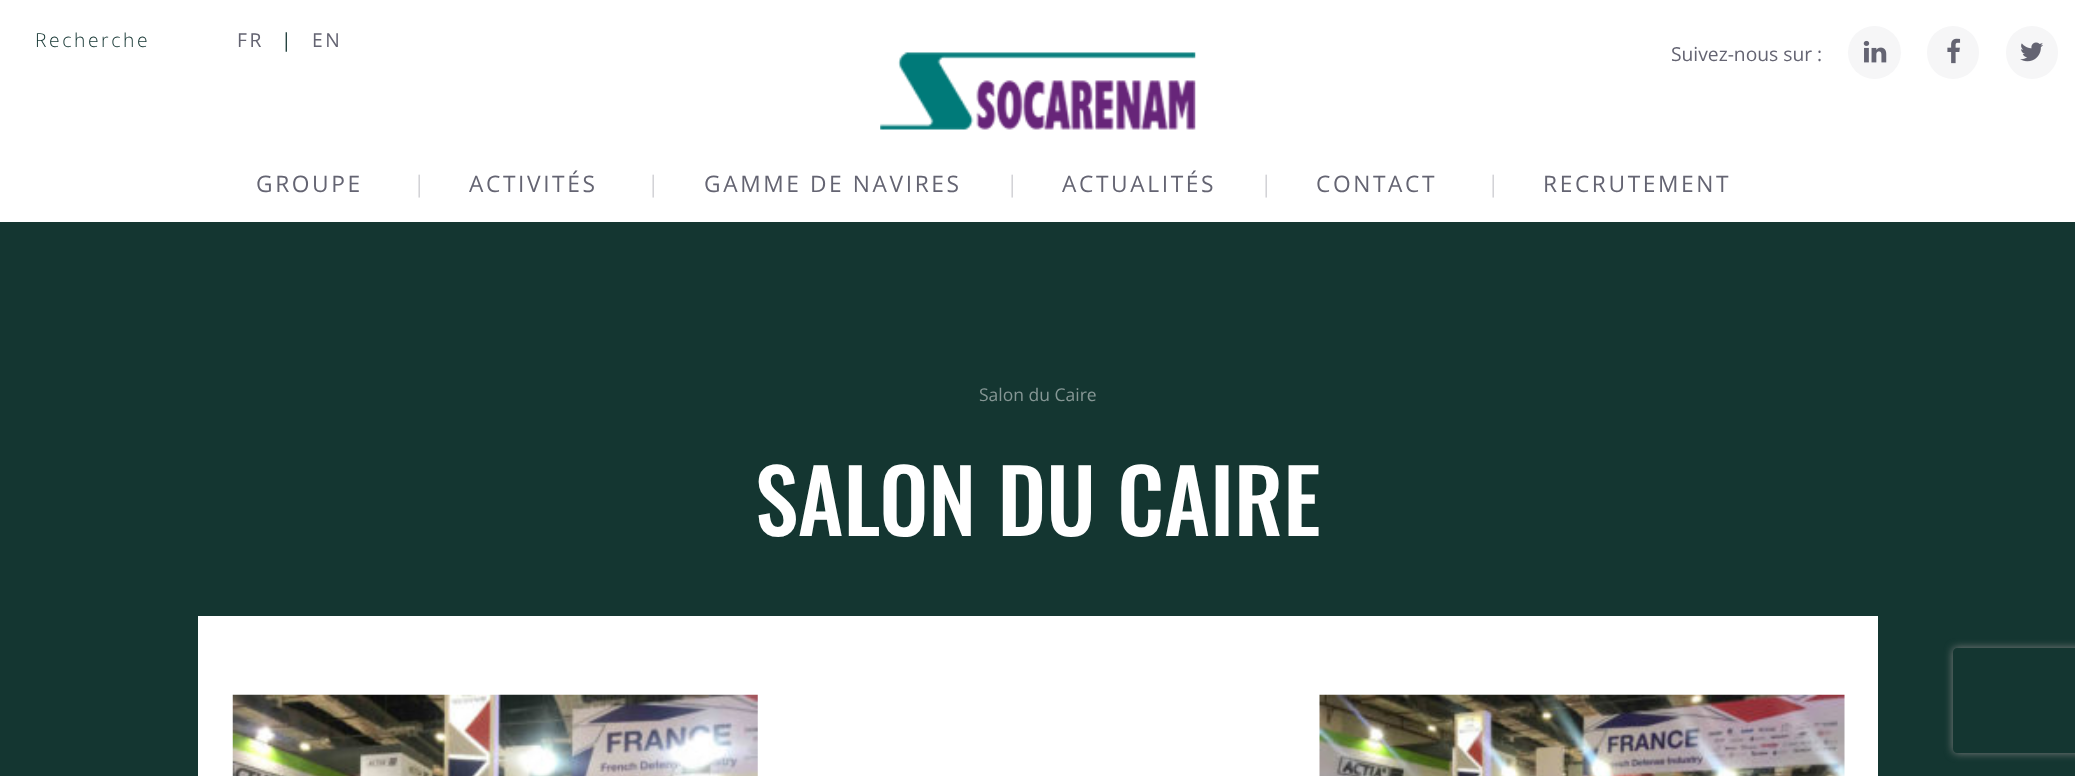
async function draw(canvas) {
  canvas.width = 2075
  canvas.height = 776
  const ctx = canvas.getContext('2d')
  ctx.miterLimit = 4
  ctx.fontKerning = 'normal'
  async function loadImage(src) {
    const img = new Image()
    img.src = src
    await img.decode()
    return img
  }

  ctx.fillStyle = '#143631'
  ctx.fillRect(0, 0, 2075, 776)
  ctx.fillStyle = '#fff'
  ctx.fillRect(0, 0, 2075, 222)
  ctx.letterSpacing = '2.6px'
  ctx.font = '300 19.25px Open Sans'
  ctx.fillStyle = '#133431'
  ctx.fillText('Recherche', 35, 47)
  ctx.font = '19.25px Open Sans'
  ctx.fillStyle = '#646472'
  ctx.fillText('FR', 237, 47)
  ctx.fillStyle = '#133431'
  ctx.fillText('|', 281, 47)
  ctx.fillStyle = '#646472'
  ctx.fillText('EN', 312, 47)
  ctx.letterSpacing = '0px'
  ctx.fillText('Suivez-nous sur :', 1671, 61)
  ctx.fillStyle = '#f6f6f7'
  ctx.beginPath()
  ctx.arc(1874.5, 52.5, 26.5, 0, 2 * Math.PI)
  ctx.fill()
  ctx.drawImage(await loadImage('image0.png'), 1863, 40, 24, 23)
  ctx.beginPath()
  ctx.roundRect(1927, 26, 52, 53, 26)
  ctx.fill()
  ctx.drawImage(await loadImage('image1.png'), 1947, 38, 14, 26)
  ctx.beginPath()
  ctx.roundRect(2006, 26, 52, 53, 26)
  ctx.fill()
  ctx.drawImage(await loadImage('image2.png'), 2020, 42, 23, 20)
  ctx.drawImage(await loadImage('image3.png'), 880, 52, 316, 78)
  ctx.letterSpacing = '2.6px'
  ctx.font = '22.75px Open Sans'
  ctx.fillStyle = '#646472'
  ctx.fillText('GROUPE', 256, 192)
  ctx.letterSpacing = '0px'
  ctx.fillStyle = '#d3d3d7'
  ctx.fillText('|', 413, 192)
  ctx.letterSpacing = '2.6px'
  ctx.fillStyle = '#646472'
  ctx.fillText('ACTIVITÉS', 469, 192)
  ctx.letterSpacing = '0px'
  ctx.fillStyle = '#d3d3d7'
  ctx.fillText('|', 647, 192)
  ctx.letterSpacing = '2.6px'
  ctx.fillStyle = '#646472'
  ctx.fillText('GAMME DE NAVIRES', 704, 192)
  ctx.letterSpacing = '0px'
  ctx.fillStyle = '#d3d3d7'
  ctx.fillText('|', 1006, 192)
  ctx.letterSpacing = '2.6px'
  ctx.fillStyle = '#646472'
  ctx.fillText('ACTUALITÉS', 1062, 192)
  ctx.letterSpacing = '0px'
  ctx.fillStyle = '#d3d3d7'
  ctx.fillText('|', 1260, 192)
  ctx.letterSpacing = '2.6px'
  ctx.fillStyle = '#646472'
  ctx.fillText('CONTACT', 1316, 192)
  ctx.letterSpacing = '0px'
  ctx.fillStyle = '#d3d3d7'
  ctx.fillText('|', 1487, 192)
  ctx.letterSpacing = '2.6px'
  ctx.fillStyle = '#646472'
  ctx.fillText('RECRUTEMENT', 1543, 192)
  ctx.letterSpacing = '0px'
  ctx.font = '17.5px Open Sans'
  ctx.fillStyle = '#869795'
  ctx.fillText('Salon du Caire', 979, 401)
  ctx.font = '500 87.5px Oswald'
  ctx.fillStyle = '#fff'
  ctx.fillText('SALON DU CAIRE', 755, 536)
  ctx.fillRect(198, 616, 1680, 160)
  ctx.drawImage(await loadImage('image4.png'), 232, 694, 526, 82)
  ctx.drawImage(await loadImage('image5.png'), 1319, 694, 526, 82)
  ctx.save()
  ctx.beginPath()
  ctx.moveTo(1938, 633)
  ctx.lineTo(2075, 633)
  ctx.lineTo(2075, 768)
  ctx.lineTo(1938, 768)
  ctx.closePath()
  ctx.moveTo(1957, 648)
  ctx.lineTo(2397, 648)
  ctx.bezierCurveTo(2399, 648, 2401, 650, 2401, 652)
  ctx.lineTo(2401, 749)
  ctx.bezierCurveTo(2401, 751, 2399, 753, 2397, 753)
  ctx.lineTo(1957, 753)
  ctx.bezierCurveTo(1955, 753, 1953, 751, 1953, 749)
  ctx.lineTo(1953, 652)
  ctx.bezierCurveTo(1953, 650, 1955, 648, 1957, 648)
  ctx.closePath()
  ctx.clip('evenodd')
  ctx.fillStyle = '#808080'
  ctx.filter = 'blur(4.5px)'
  ctx.beginPath()
  ctx.roundRect(1953, 648, 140, 105, 4)
  ctx.fill()
  ctx.filter = 'none'
  ctx.restore()
}

draw(document.querySelector('canvas'))
